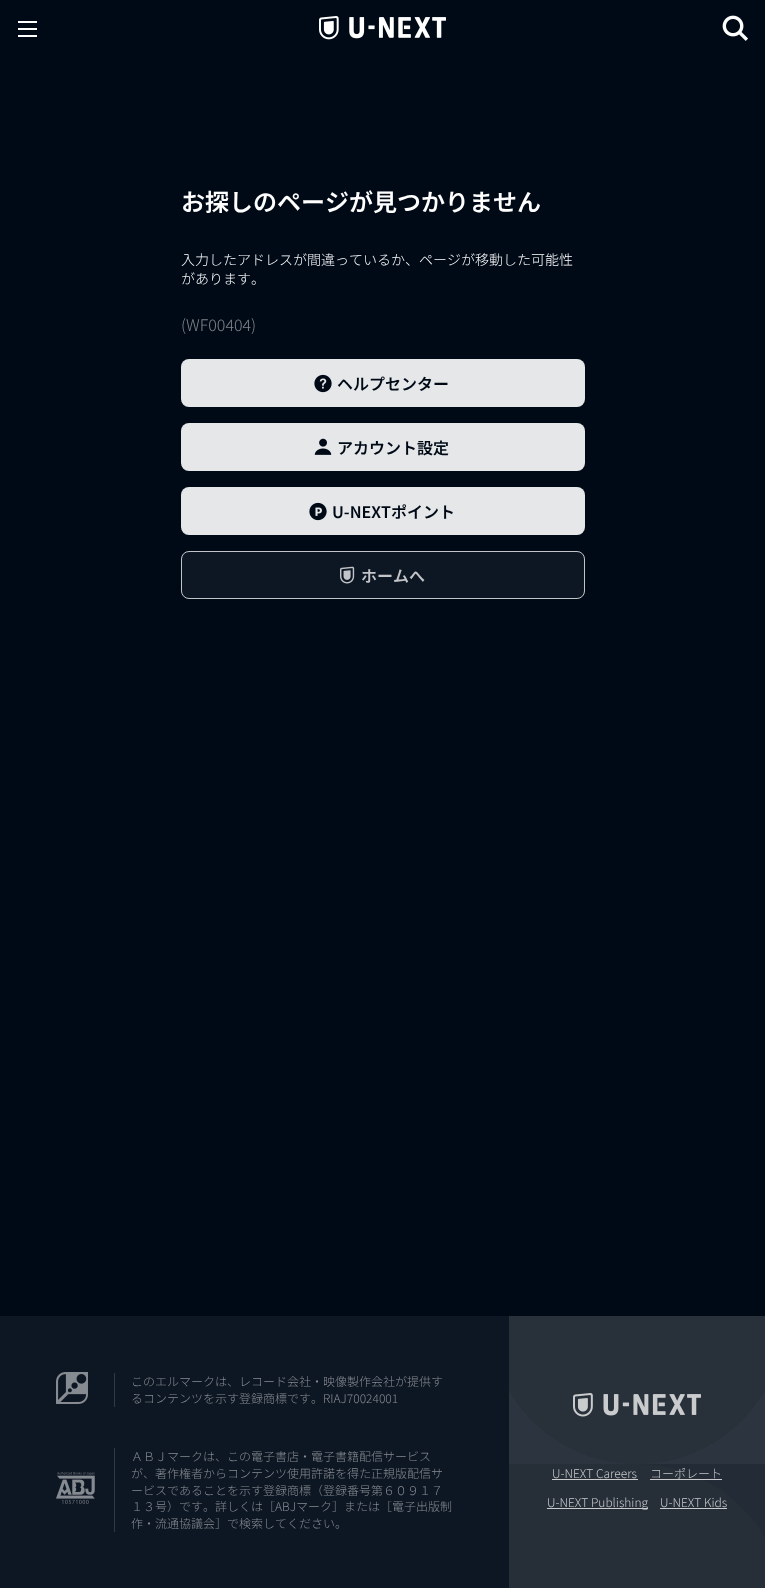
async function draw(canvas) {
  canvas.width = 765
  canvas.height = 1588
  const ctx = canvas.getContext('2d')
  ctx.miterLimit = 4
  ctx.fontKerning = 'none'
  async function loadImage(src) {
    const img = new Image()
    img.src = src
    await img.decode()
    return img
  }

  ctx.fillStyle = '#000a17'
  ctx.fillRect(0, 0, 765, 1588)
  ctx.fillStyle = '#fff'
  ctx.fillRect(18, 21, 19, 2)
  ctx.fillRect(18, 28, 19, 2)
  ctx.fillRect(18, 35, 19, 2)
  ctx.drawImage(await loadImage('image0.png'), 319, 16, 127, 24)
  ctx.drawImage(await loadImage('image1.png'), 722, 15, 26, 26)
  ctx.font = '600 24px Noto Sans JP'
  ctx.fillText('お探しのページが見つかりません', 181, 211)
  ctx.font = '300 14px Noto Sans JP'
  ctx.fillText('入力したアドレスが間違っているか、ページが移動した可能性', 181, 265)
  ctx.fillText('があります。', 181, 284)
  ctx.font = '300 16px Noto Sans JP'
  ctx.fillStyle = '#80858b'
  ctx.fillText('(WF00404)', 181, 331)
  ctx.fillStyle = '#e6e7e8'
  ctx.beginPath()
  ctx.roundRect(181, 359, 404, 48, 8)
  ctx.fill()
  ctx.drawImage(await loadImage('image2.png'), 314, 374, 18, 19)
  ctx.font = '600 16px Noto Sans JP'
  ctx.fillStyle = '#000a17'
  ctx.fillText('ヘルプセンター', 337, 390)
  ctx.fillStyle = '#e6e7e8'
  ctx.beginPath()
  ctx.roundRect(181, 423, 404, 48, 8)
  ctx.fill()
  ctx.drawImage(await loadImage('image3.png'), 314, 438, 18, 17)
  ctx.fillStyle = '#000a17'
  ctx.fillText('アカウント設定', 337, 454)
  ctx.fillStyle = '#e6e7e8'
  ctx.beginPath()
  ctx.roundRect(181, 487, 404, 48, 8)
  ctx.fill()
  ctx.drawImage(await loadImage('image4.png'), 309, 502, 18, 19)
  ctx.fillStyle = '#000a17'
  ctx.fillText('U-NEXTポイント', 332, 518)
  ctx.fillStyle = '#0d1623'
  ctx.beginPath()
  ctx.roundRect(181, 551, 404, 48, 8)
  ctx.fill()
  ctx.beginPath()
  ctx.roundRect(181.5, 551.5, 403, 47, 7.5)
  ctx.strokeStyle = '#ffffffbf'
  ctx.stroke()
  ctx.drawImage(await loadImage('image5.png'), 340, 566, 15, 18)
  ctx.fillStyle = '#c3c5c8'
  ctx.fillText('ホームへ', 361, 582)
  ctx.fillStyle = '#0d1623'
  ctx.fillRect(0, 1316, 509, 272)
  ctx.drawImage(await loadImage('image6.png'), 56, 1372, 32, 32)
  ctx.fillStyle = '#313944'
  ctx.fillRect(114, 1373, 1, 34)
  ctx.font = '300 12px Noto Sans JP'
  ctx.fillStyle = '#868b91'
  ctx.fillText('このエルマークは、レコード会社・映像製作会社が提供す', 131, 1386)
  ctx.fillText('るコンテンツを示す登録商標です。RIAJ70024001', 131, 1403)
  ctx.drawImage(await loadImage('image7.png'), 56, 1472, 39, 32)
  ctx.fillStyle = '#313944'
  ctx.fillRect(114, 1448, 1, 84)
  ctx.fillStyle = '#868b91'
  ctx.fillText('ＡＢＪマークは、この電子書店・電子書籍配信サービス', 131, 1461)
  ctx.fillText('が、著作権者からコンテンツ使用許諾を得た正規版配信サ', 131, 1478)
  ctx.fillText('ービスであることを示す登録商標（登録番号第６０９１７', 131, 1495)
  ctx.fillText('１３号）です。詳しくは［ABJマーク］または［電子出版制', 131, 1511)
  ctx.fillText('作・流通協議会］で検索してください。', 131, 1528)
  ctx.fillStyle = '#232b36'
  ctx.fillRect(638, 1464, 127, 74)
  ctx.save()
  ctx.beginPath()
  ctx.rect(509, 1316, 256, 272)
  ctx.clip()
  ctx.fillStyle = '#262e38'
  ctx.beginPath()
  ctx.moveTo(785, 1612)
  ctx.bezierCurveTo(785, 1530, 719, 1464, 637, 1464)
  ctx.lineTo(489, 1464)
  ctx.lineTo(489, 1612)
  ctx.closePath()
  ctx.fill('evenodd')
  ctx.restore()
  ctx.fillStyle = '#2b343f'
  ctx.fillRect(509, 1390, 256, 74)
  ctx.save()
  ctx.beginPath()
  ctx.rect(509, 1316, 256, 272)
  ctx.clip()
  ctx.fillStyle = '#28303a'
  ctx.beginPath()
  ctx.moveTo(637, 1464)
  ctx.bezierCurveTo(555, 1464, 489, 1398, 489, 1316)
  ctx.lineTo(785, 1316)
  ctx.bezierCurveTo(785, 1398, 719, 1464, 637, 1464)
  ctx.closePath()
  ctx.fill('evenodd')
  ctx.restore()
  ctx.drawImage(await loadImage('image8.png'), 573, 1393, 128, 24)
  ctx.fillStyle = '#c9cbcd'
  ctx.fillText('U-NEXT Careers', 552, 1478)
  ctx.fillRect(552, 1479, 86, 1)
  ctx.fillStyle = '#c3c5c8'
  ctx.fillText('コーポレート', 650, 1478)
  ctx.fillStyle = '#ffffffbf'
  ctx.fillRect(650, 1479, 72, 1)
  ctx.fillStyle = '#c9cbcd'
  ctx.fillRect(547, 1508, 101, 1)
  ctx.fillText('U-NEXT Publishing', 547, 1507)
  ctx.fillText('U-NEXT Kids', 660, 1507)
  ctx.fillRect(660, 1508, 67, 1)
}

draw(document.querySelector('canvas'))
